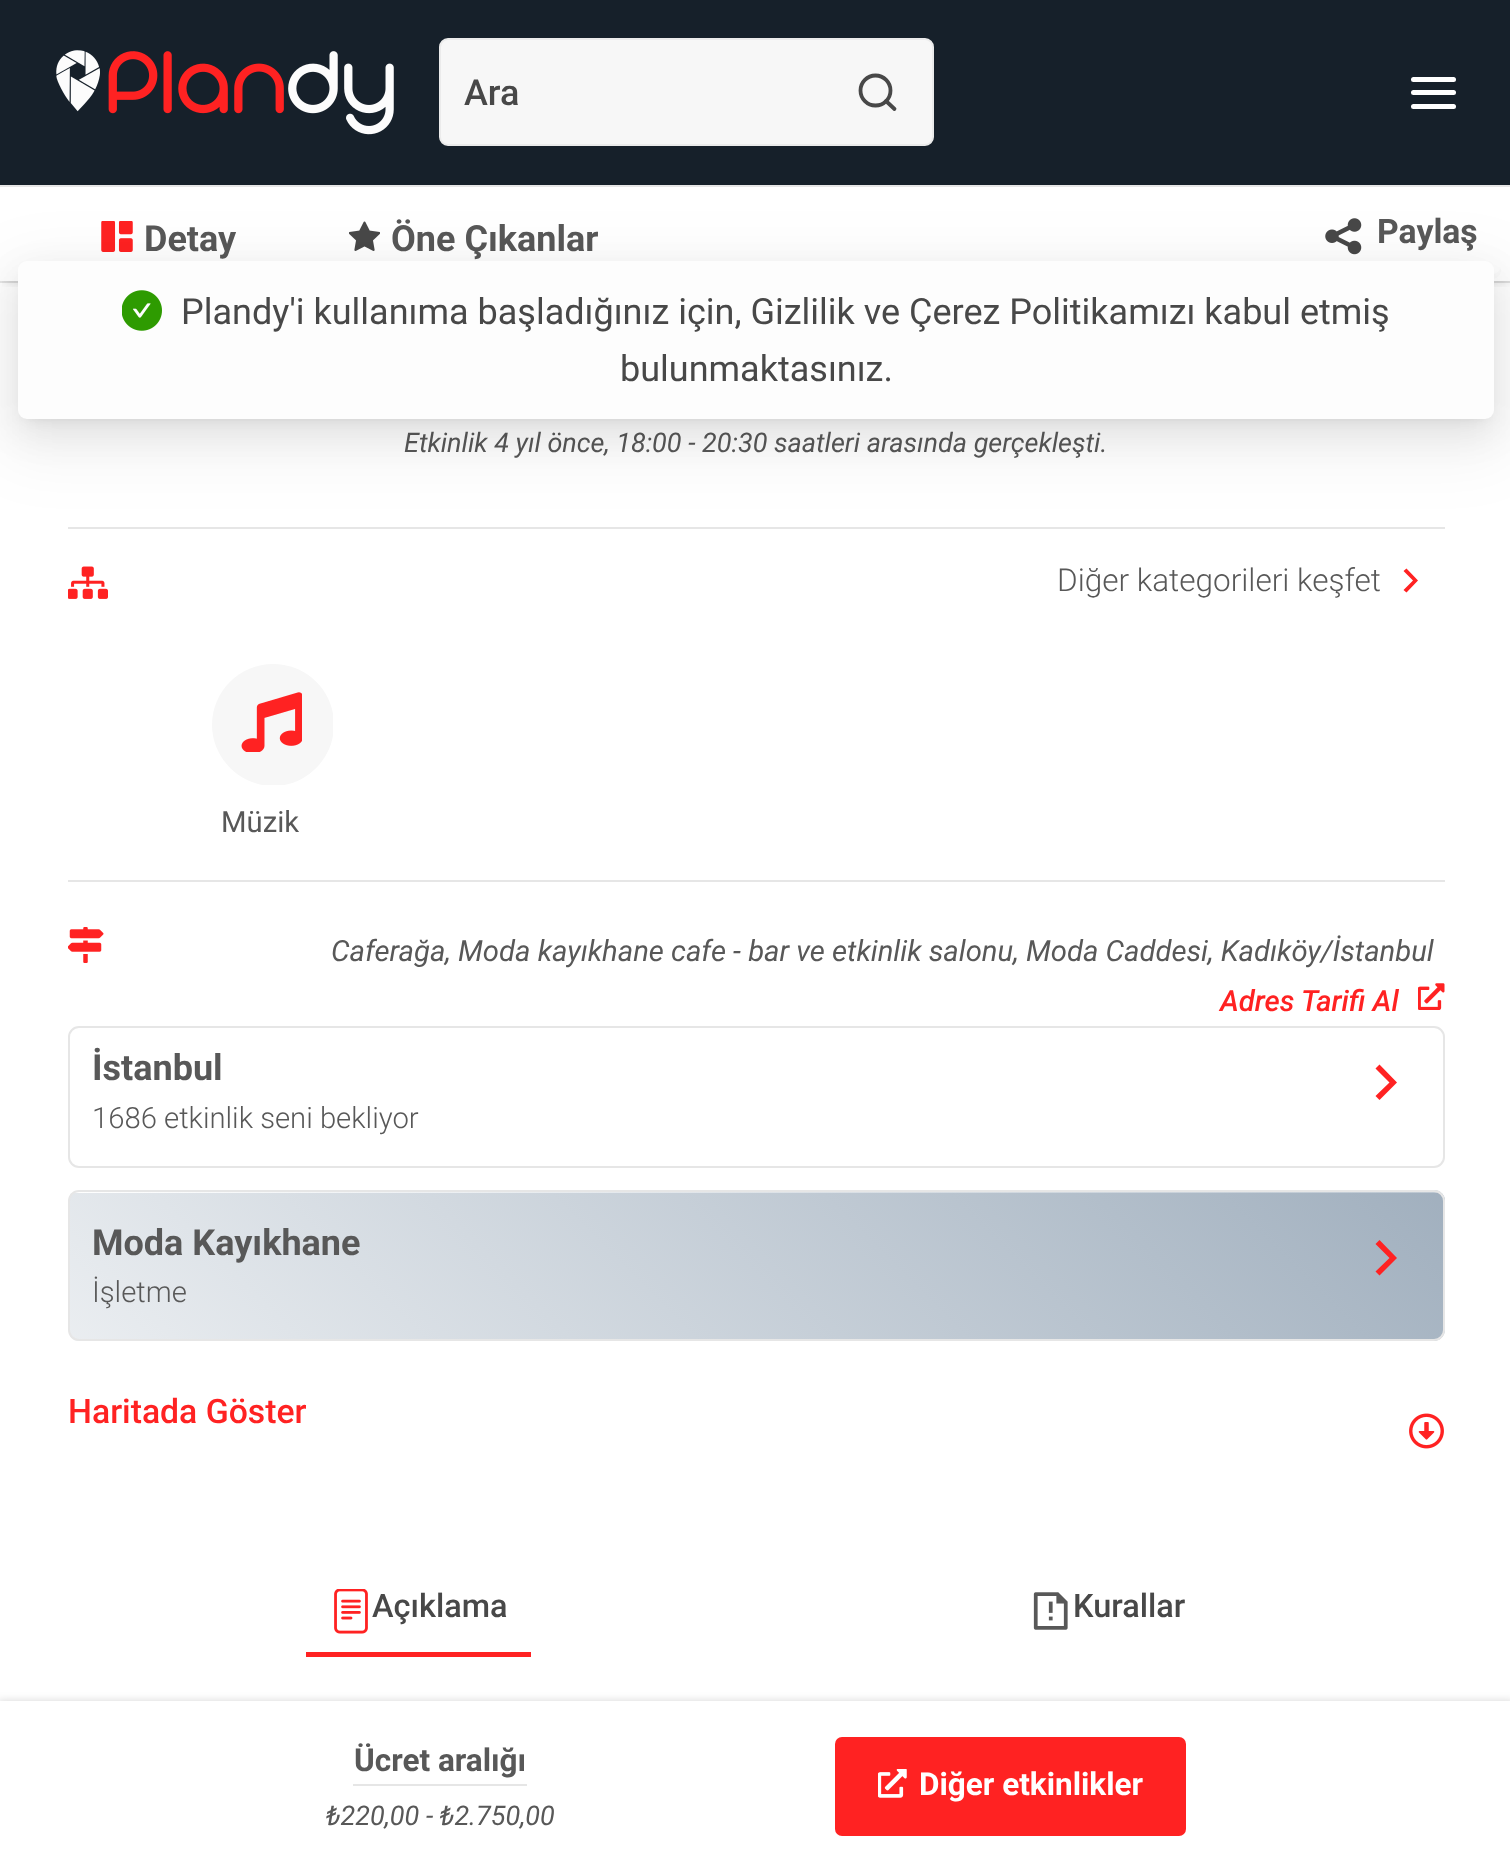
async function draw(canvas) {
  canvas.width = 1510
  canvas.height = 1872
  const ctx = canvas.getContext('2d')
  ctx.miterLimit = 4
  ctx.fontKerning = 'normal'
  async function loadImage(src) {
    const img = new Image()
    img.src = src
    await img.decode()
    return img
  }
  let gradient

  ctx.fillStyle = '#fff'
  ctx.fillRect(0, 0, 1510, 1872)
  ctx.fillStyle = '#16202a'
  ctx.fillRect(0, 0, 1510, 185)
  ctx.drawImage(await loadImage('image0.png'), 56, 50, 338, 85)
  ctx.fillStyle = '#f7f7f7'
  ctx.beginPath()
  ctx.roundRect(440, 39, 493, 106, 8)
  ctx.fill()
  ctx.strokeStyle = '#ebebeb'
  ctx.lineWidth = 2
  ctx.stroke()
  ctx.font = '500 36px Roboto'
  ctx.fillStyle = '#484848'
  ctx.fillText('Ara', 464, 105)
  ctx.beginPath()
  ctx.arc(875.5, 90.5, 15, 0, 2 * Math.PI)
  ctx.strokeStyle = '#484848'
  ctx.lineWidth = 3.8
  ctx.stroke()
  ctx.beginPath()
  ctx.moveTo(894.5, 109)
  ctx.lineTo(886, 101)
  ctx.lineCap = 'round'
  ctx.lineJoin = 'round'
  ctx.stroke()
  ctx.fillStyle = '#fff'
  ctx.beginPath()
  ctx.roundRect(1411, 77, 45, 5, 2.5)
  ctx.fill()
  ctx.beginPath()
  ctx.roundRect(1411, 90, 45, 5, 2.5)
  ctx.fill()
  ctx.beginPath()
  ctx.roundRect(1411, 104, 45, 5, 2.5)
  ctx.fill()
  ctx.fillStyle = '#e6e6e6'
  ctx.fillRect(0, 185, 1510, 2)
  ctx.fillRect(0, 281, 1510, 2)
  ctx.save()
  ctx.beginPath()
  ctx.rect(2, 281, 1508, 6)
  ctx.clip()
  ctx.fillStyle = '#00000029'
  ctx.filter = 'blur(5.5px)'
  ctx.beginPath()
  ctx.rect(5, 196, 1503, 85)
  ctx.fill()
  ctx.filter = 'none'
  ctx.restore()
  ctx.drawImage(await loadImage('image1.png'), 101, 221, 32, 31)
  ctx.font = 'bold 36px Roboto'
  ctx.fillStyle = '#585858'
  ctx.fillText('Detay', 144, 251)
  ctx.drawImage(await loadImage('image2.png'), 349, 221, 31, 30)
  ctx.fillText('Öne Çıkanlar', 391, 251)
  ctx.fillStyle = '#fbfbfb'
  ctx.beginPath()
  ctx.moveTo(1298, 203)
  ctx.lineTo(1298, 270)
  ctx.bezierCurveTo(1298, 275, 1302, 279, 1307, 279)
  ctx.lineTo(1492, 279)
  ctx.bezierCurveTo(1497, 279, 1501, 275, 1501, 270)
  ctx.lineTo(1501, 203)
  ctx.lineTo(1501, 266)
  ctx.bezierCurveTo(1501, 270, 1497, 274, 1492, 274)
  ctx.lineTo(1307, 274)
  ctx.bezierCurveTo(1302, 274, 1298, 270, 1298, 266)
  ctx.closePath()
  ctx.fill()
  ctx.drawImage(await loadImage('image3.png'), 1325, 218, 37, 37)
  ctx.font = 'bold 33.75px Roboto'
  ctx.fillStyle = '#585858'
  ctx.fillText('Paylaş', 1377, 243)
  ctx.font = 'italic 27px Roboto'
  ctx.fillText('Etkinlik 4 yıl önce, 18:00 - 20:30 saatleri arasında gerçekleşti.', 404, 452)
  ctx.fillStyle = '#e6e6e6'
  ctx.fillRect(68, 527, 1377, 2)
  ctx.drawImage(await loadImage('image4.png'), 68, 566, 40, 33)
  ctx.font = '300 31.5px Roboto'
  ctx.fillStyle = '#585858'
  ctx.fillText('Diğer kategorileri keşfet', 1057, 591)
  ctx.fillStyle = '#f22'
  ctx.beginPath()
  ctx.moveTo(1413, 580.5)
  ctx.lineTo(1403.5, 571)
  ctx.lineTo(1406.5, 568.5)
  ctx.lineTo(1418, 580.5)
  ctx.lineTo(1406.5, 592.5)
  ctx.lineTo(1403.5, 590)
  ctx.closePath()
  ctx.fill()
  ctx.save()
  ctx.beginPath()
  ctx.rect(207, 659, 126, 126)
  ctx.clip()
  ctx.fillStyle = '#f7f7f7'
  ctx.beginPath()
  ctx.moveTo(273, 664)
  ctx.bezierCurveTo(240, 664, 212, 691, 212, 725)
  ctx.bezierCurveTo(212, 758, 240, 786, 273, 786)
  ctx.bezierCurveTo(307, 786, 334, 758, 334, 725)
  ctx.bezierCurveTo(334, 691, 307, 664, 273, 664)
  ctx.closePath()
  ctx.fill()
  ctx.restore()
  ctx.drawImage(await loadImage('image5.png'), 241, 692, 61, 60)
  ctx.font = '29.25px Roboto'
  ctx.fillStyle = '#585858'
  ctx.fillText('Müzik', 221, 832)
  ctx.fillStyle = '#e6e6e6'
  ctx.fillRect(68, 880, 1377, 2)
  ctx.drawImage(await loadImage('image6.png'), 68, 927, 36, 36)
  ctx.font = 'italic 29.25px Roboto'
  ctx.fillStyle = '#585858'
  ctx.fillText('Caferağa, Moda kayıkhane cafe - bar ve etkinlik salonu, Moda Caddesi, Kadıköy/İstanbul', 331, 961)
  ctx.font = 'italic 500 29.25px Roboto'
  ctx.fillStyle = '#f22'
  ctx.fillText('Adres Tarifi Al', 1220, 1011)
  ctx.drawImage(await loadImage('image7.png'), 1418, 983, 27, 27)
  ctx.beginPath()
  ctx.roundRect(69, 1027, 1375, 140, 10)
  ctx.strokeStyle = '#e6e6e6'
  ctx.lineWidth = 2
  ctx.lineJoin = 'miter'
  ctx.stroke()
  ctx.font = 'bold 36px Roboto'
  ctx.fillStyle = '#585858'
  ctx.fillText('İstanbul', 92, 1080)
  ctx.font = '300 29.25px Roboto'
  ctx.fillText('1686 etkinlik seni bekliyor', 92, 1128)
  ctx.fillStyle = '#f22'
  ctx.beginPath()
  ctx.moveTo(1389.5, 1082.5)
  ctx.lineTo(1375.5, 1068.5)
  ctx.lineTo(1379.5, 1064.5)
  ctx.lineTo(1397, 1082.5)
  ctx.lineTo(1379.5, 1100)
  ctx.lineTo(1375.5, 1096)
  ctx.closePath()
  ctx.fill()
  ctx.save()
  ctx.beginPath()
  ctx.roundRect(68, 1190, 1377, 151, 11)
  ctx.clip()
  gradient = ctx.createLinearGradient(1296, 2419, 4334, -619)
  gradient.addColorStop(0, '#fff')
  gradient.addColorStop(0.33, '#9faebd')
  gradient.addColorStop(0.67, '#fff')
  gradient.addColorStop(1, '#16202a')
  ctx.fillStyle = gradient
  ctx.fillRect(70, 1190, 1375, 3)
  gradient = ctx.createLinearGradient(1296, 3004, 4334, -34)
  gradient.addColorStop(0, '#fff')
  gradient.addColorStop(0.33, '#9faebd')
  gradient.addColorStop(0.67, '#fff')
  gradient.addColorStop(1, '#16202a')
  ctx.fillStyle = gradient
  ctx.beginPath()
  ctx.roundRect(70, 1193, 1375, 148, [0, 0, 11, 0])
  ctx.fill()
  ctx.restore()
  ctx.beginPath()
  ctx.roundRect(69, 1191, 1375, 149, 10)
  ctx.stroke()
  ctx.font = 'bold 36px Roboto'
  ctx.fillStyle = '#585858'
  ctx.fillText('Moda Kayıkhane', 92, 1255)
  ctx.font = '300 29.25px Roboto'
  ctx.fillText('İşletme', 92, 1302)
  ctx.fillStyle = '#f22'
  ctx.beginPath()
  ctx.moveTo(1389.5, 1258)
  ctx.lineTo(1375.5, 1244)
  ctx.lineTo(1379.5, 1240)
  ctx.lineTo(1397, 1258)
  ctx.lineTo(1379.5, 1275.5)
  ctx.lineTo(1375.5, 1271.5)
  ctx.closePath()
  ctx.fill()
  ctx.font = '500 33.75px Roboto'
  ctx.fillText('Haritada Göster', 68, 1423)
  ctx.drawImage(await loadImage('image8.png'), 1409, 1413, 35, 36)
  ctx.fillRect(306, 1652, 225, 5)
  ctx.drawImage(await loadImage('image9.png'), 334, 1589, 34, 45)
  ctx.font = '500 32.5px Roboto'
  ctx.fillStyle = '#484848'
  ctx.fillText('Açıklama', 372, 1617)
  ctx.drawImage(await loadImage('image10.png'), 1033, 1592, 35, 38)
  ctx.fillText('Kurallar', 1073, 1617)
  ctx.fillStyle = '#00000029'
  ctx.filter = 'blur(4.5px)'
  ctx.beginPath()
  ctx.rect(-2, 1701, 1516, 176)
  ctx.fill()
  ctx.filter = 'none'
  ctx.fillStyle = '#fff'
  ctx.fillRect(0, 1701, 1510, 171)
  ctx.fillStyle = '#e6e6e6'
  ctx.fillRect(353, 1784, 174, 2)
  ctx.font = 'bold 31.5px Roboto'
  ctx.fillStyle = '#585858'
  ctx.fillText('Ücret aralığı', 354, 1771)
  ctx.font = 'italic 27px Roboto'
  ctx.fillText('₺220,00 - ₺2.750,00', 326, 1825)
  ctx.fillStyle = '#f22'
  ctx.beginPath()
  ctx.roundRect(835, 1737, 351, 99, 7)
  ctx.fill()
  ctx.drawImage(await loadImage('image11.png'), 878, 1769, 29, 29)
  ctx.font = 'bold 31.5px Roboto'
  ctx.fillStyle = '#fff'
  ctx.fillText('Diğer etkinlikler', 919, 1795)
  ctx.fillStyle = '#0000000d'
  ctx.filter = 'blur(31.5px)'
  ctx.beginPath()
  ctx.roundRect(0, 263, 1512, 194, 27)
  ctx.fill()
  ctx.filter = 'none'
  ctx.fillStyle = '#00000014'
  ctx.filter = 'blur(18px)'
  ctx.beginPath()
  ctx.roundRect(18, 275, 1476, 157, 9)
  ctx.fill()
  ctx.filter = 'none'
  ctx.fillStyle = '#0000001f'
  ctx.filter = 'blur(7px)'
  ctx.beginPath()
  ctx.rect(27, 277, 1458, 139)
  ctx.fill()
  ctx.filter = 'none'
  ctx.fillStyle = '#fdfdfd'
  ctx.beginPath()
  ctx.roundRect(18, 261, 1476, 158, 9)
  ctx.fill()
  ctx.drawImage(await loadImage('image12.png'), 122, 290, 40, 41)
  ctx.font = '36px Roboto'
  ctx.fillStyle = '#484848'
  ctx.fillText('Plandy\'i kullanıma başladığınız için, Gizlilik ve Çerez Politikamızı kabul etmiş', 181, 324)
  ctx.fillText('bulunmaktasınız.', 620, 381)
}

draw(document.querySelector('canvas'))
